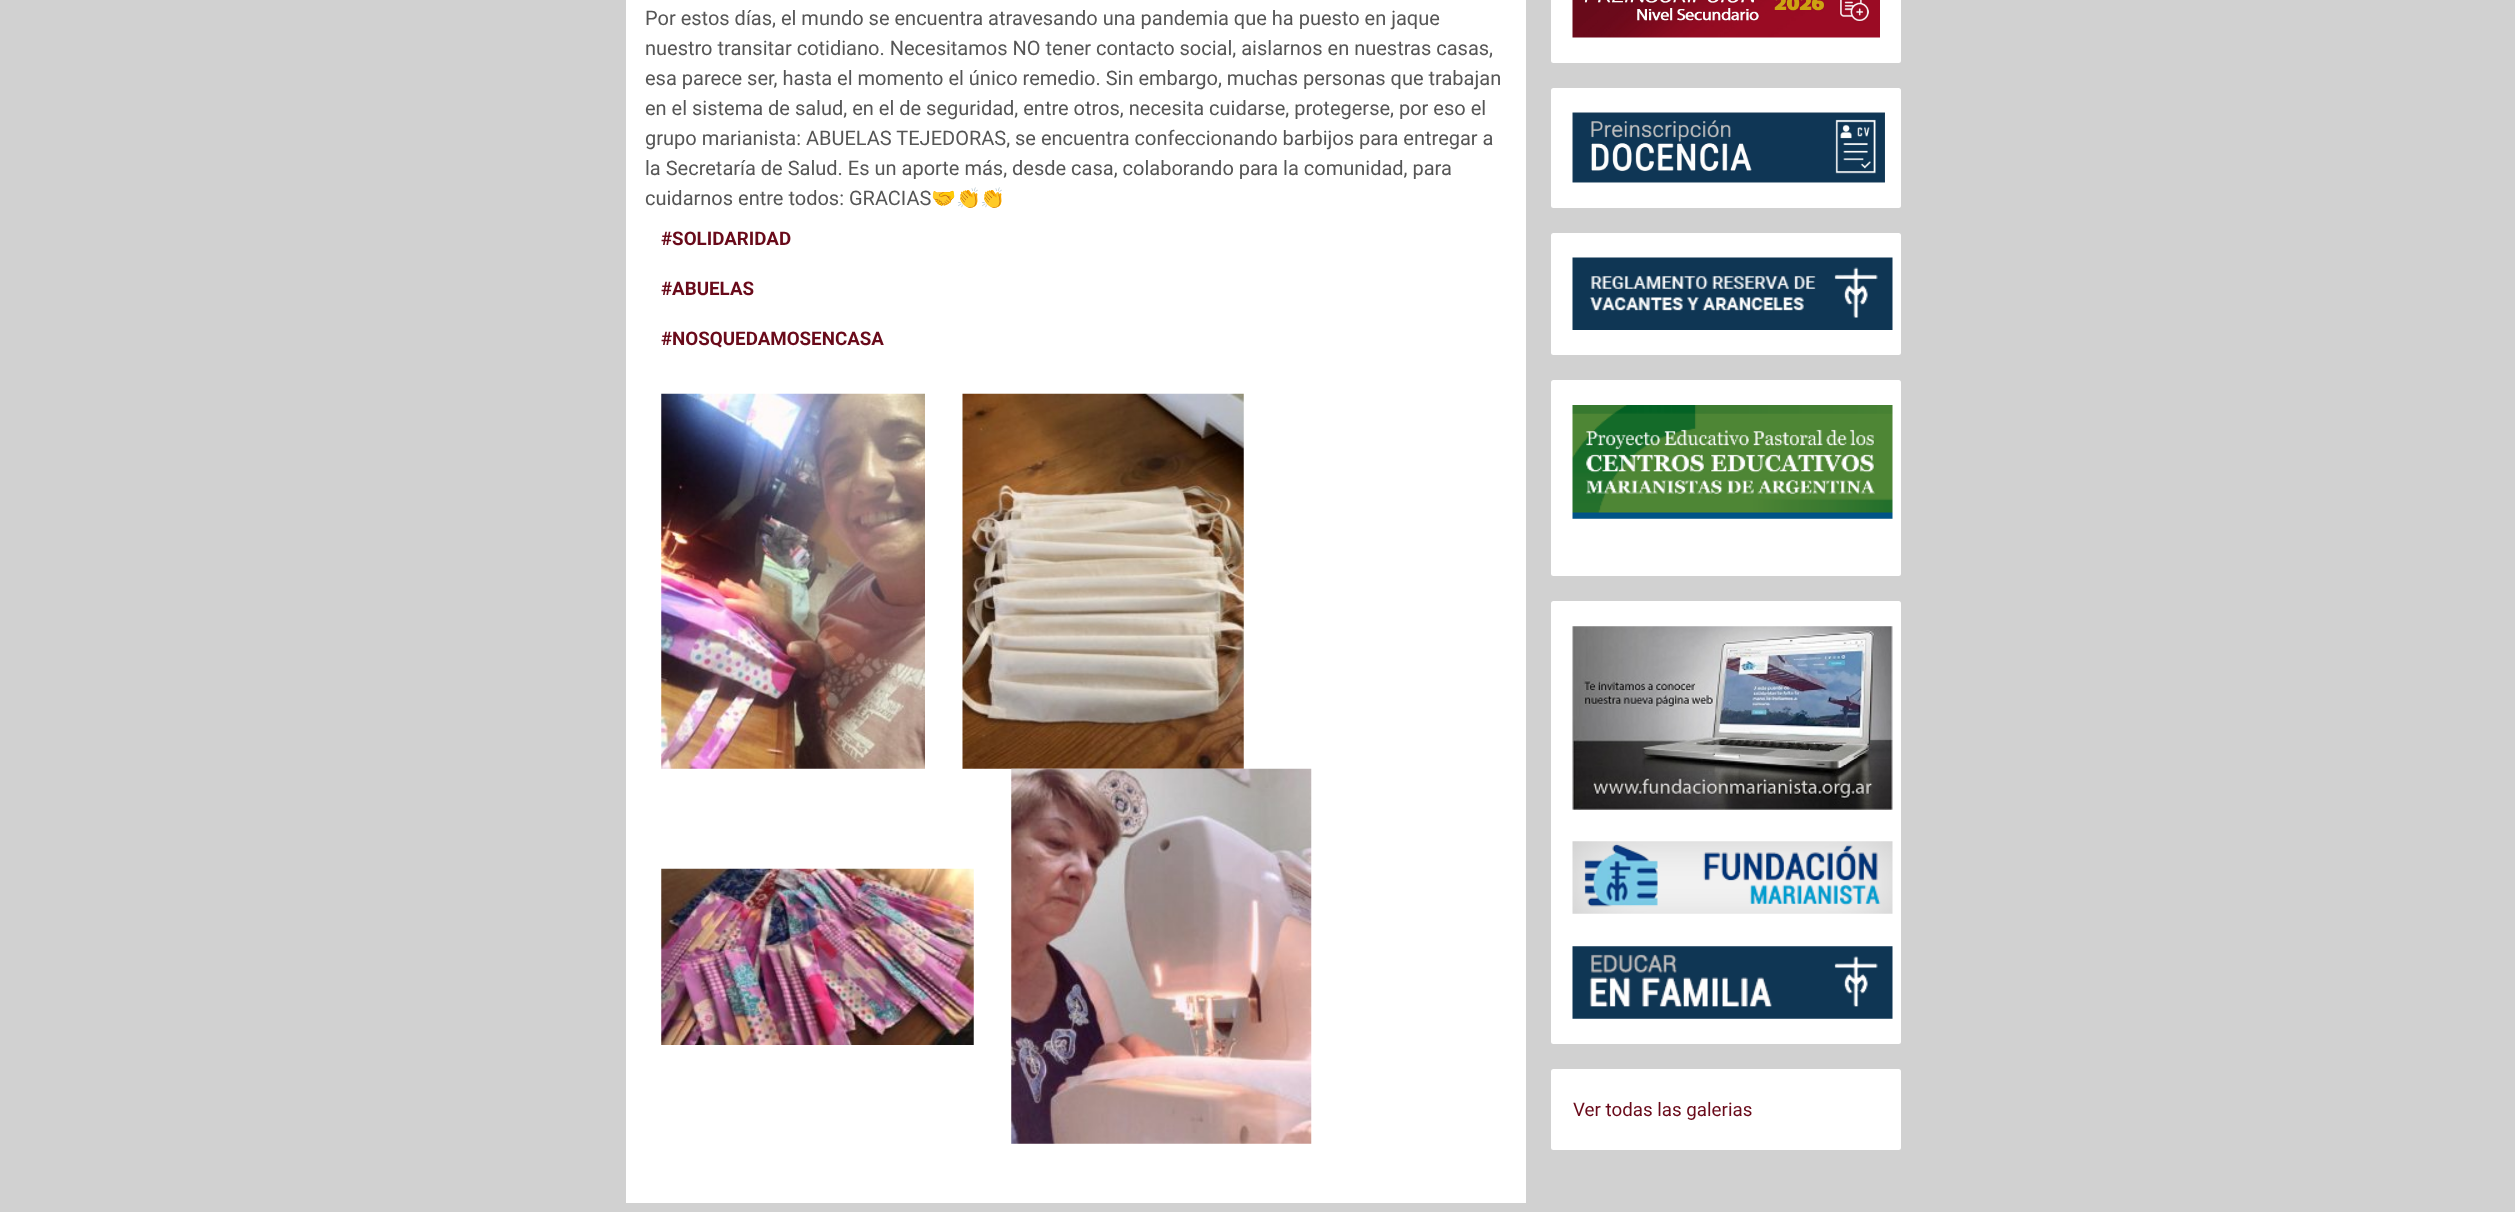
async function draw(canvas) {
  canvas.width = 2515
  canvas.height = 1212
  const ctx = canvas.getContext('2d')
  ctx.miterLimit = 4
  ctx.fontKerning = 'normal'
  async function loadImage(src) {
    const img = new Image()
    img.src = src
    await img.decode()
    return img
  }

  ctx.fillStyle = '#d1d1d1'
  ctx.fillRect(0, 0, 2515, 1212)
  ctx.fillStyle = '#fff'
  ctx.fillRect(626, 0, 900, 1203)
  ctx.font = '20px Roboto'
  ctx.fillStyle = '#565656'
  ctx.fillText('Por estos días, el mundo se encuentra atravesando una pandemia que ha puesto en jaque', 645, 25)
  ctx.fillText('nuestro transitar cotidiano. Necesitamos NO tener contacto social, aislarnos en nuestras casas,', 645, 55)
  ctx.fillText('esa parece ser, hasta el momento el único remedio. Sin embargo, muchas personas que trabajan', 645, 85)
  ctx.fillText('en el sistema de salud, en el de seguridad, entre otros, necesita cuidarse, protegerse, por eso el', 645, 115)
  ctx.fillText('grupo marianista: ABUELAS TEJEDORAS, se encuentra confeccionando barbijos para entregar a', 645, 145)
  ctx.fillText('la Secretaría de Salud. Es un aporte más, desde casa, colaborando para la comunidad, para', 645, 175)
  ctx.fillText('cuidarnos entre todos: GRACIAS', 645, 205)
  ctx.font = '20px Noto Color Emoji'
  ctx.fillText('🤝👏👏', 931, 205)
  ctx.font = 'bold 18.75px Roboto'
  ctx.fillStyle = '#690a1a'
  ctx.fillText('#SOLIDARIDAD', 661, 245)
  ctx.fillText('#ABUELAS', 661, 295)
  ctx.fillText('#NOSQUEDAMOSENCASA', 661, 345)
  ctx.drawImage(await loadImage('image0.png'), 661, 393, 264, 376)
  ctx.drawImage(await loadImage('image1.png'), 962, 393, 282, 376)
  ctx.drawImage(await loadImage('image2.png'), 661, 868, 313, 177)
  ctx.drawImage(await loadImage('image3.png'), 1011, 768, 301, 376)
  ctx.fillStyle = '#fff'
  ctx.beginPath()
  ctx.roundRect(1551, -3, 350, 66, 2.5)
  ctx.fill()
  ctx.drawImage(await loadImage('image4.png'), 1572, 0, 308, 38)
  ctx.beginPath()
  ctx.roundRect(1551, 88, 350, 120, 2.5)
  ctx.fill()
  ctx.drawImage(await loadImage('image5.png'), 1572, 112, 313, 71)
  ctx.beginPath()
  ctx.roundRect(1551, 233, 350, 122, 2.5)
  ctx.fill()
  ctx.drawImage(await loadImage('image6.png'), 1572, 257, 321, 73)
  ctx.beginPath()
  ctx.roundRect(1551, 380, 350, 196, 2.5)
  ctx.fill()
  ctx.drawImage(await loadImage('image7.png'), 1572, 405, 321, 114)
  ctx.beginPath()
  ctx.roundRect(1551, 601, 350, 443, 2.5)
  ctx.fill()
  ctx.drawImage(await loadImage('image8.png'), 1572, 626, 321, 184)
  ctx.drawImage(await loadImage('image9.png'), 1572, 841, 321, 73)
  ctx.drawImage(await loadImage('image10.png'), 1572, 946, 321, 73)
  ctx.beginPath()
  ctx.roundRect(1551, 1069, 350, 81, 2.5)
  ctx.fill()
  ctx.font = '18.75px Roboto'
  ctx.fillStyle = '#690a1a'
  ctx.fillText('Ver todas las galerias', 1573, 1116)
}

draw(document.querySelector('canvas'))
